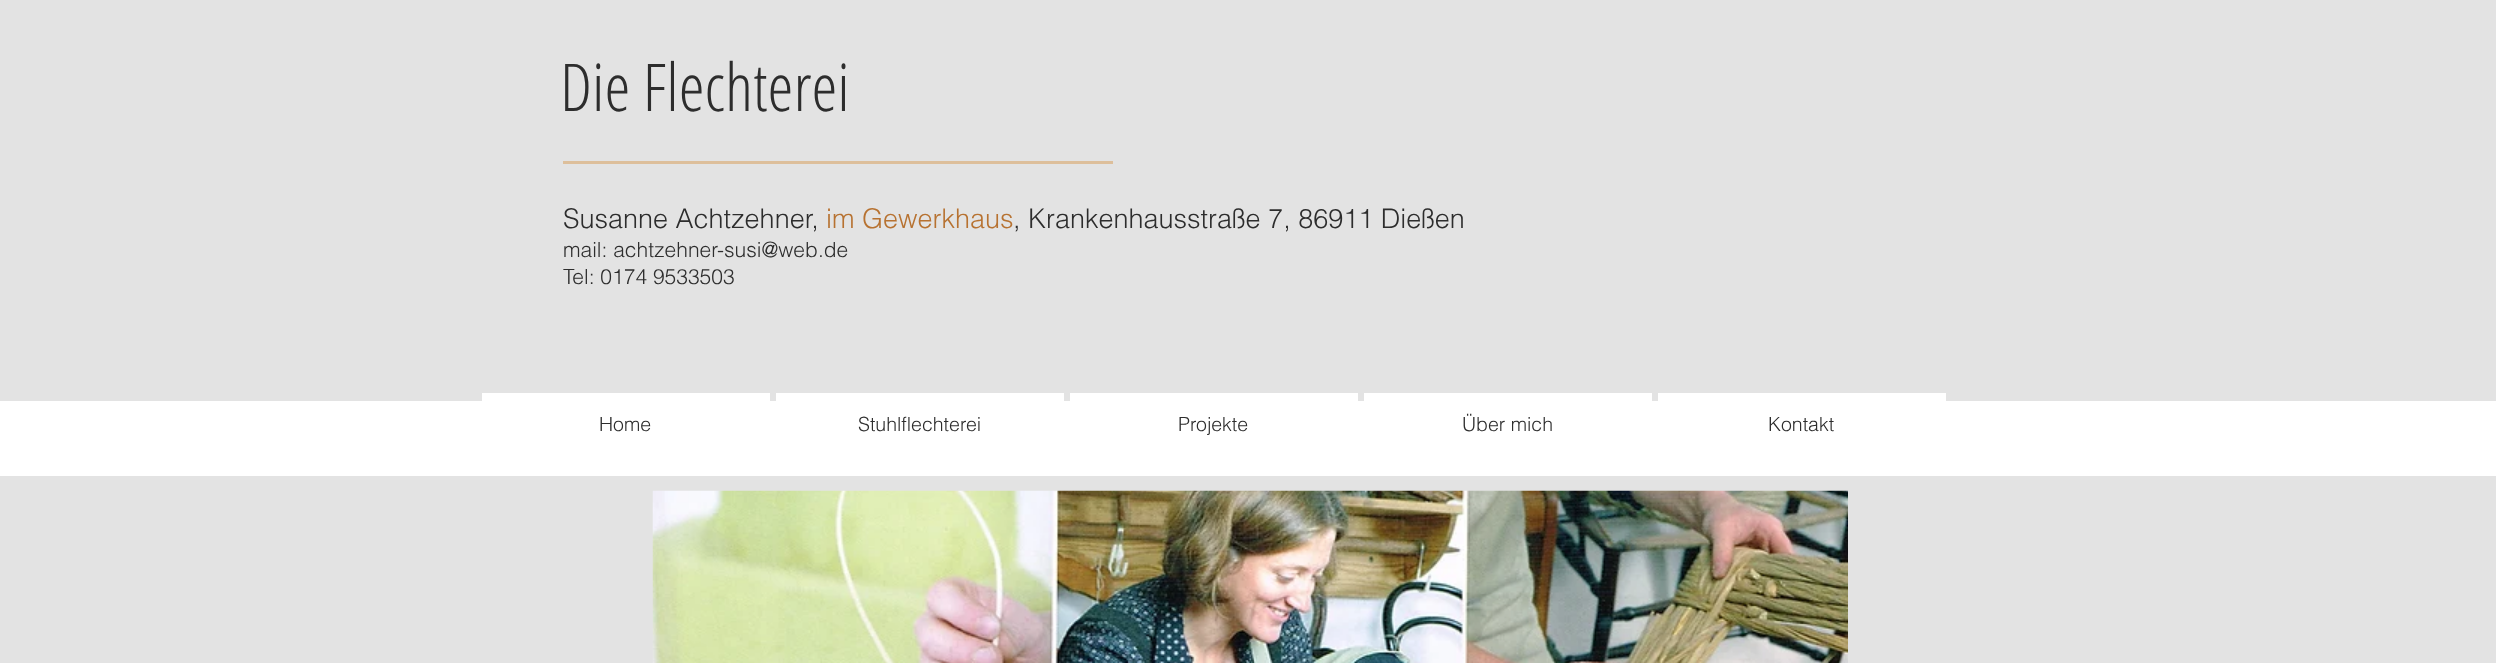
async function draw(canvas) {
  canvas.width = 2496
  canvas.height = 663
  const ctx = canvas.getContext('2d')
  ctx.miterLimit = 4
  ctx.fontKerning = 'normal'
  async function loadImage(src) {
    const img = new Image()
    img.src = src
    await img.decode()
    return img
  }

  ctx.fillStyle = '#e3e3e3'
  ctx.fillRect(0, 0, 2496, 663)
  ctx.font = '300 66px Open Sans Condensed'
  ctx.fillStyle = '#2d2d2d'
  ctx.fillText('Die Flechterei', 560, 111)
  ctx.fillStyle = '#ddbf9b'
  ctx.fillRect(563, 161, 550, 3)
  ctx.font = '300 27px helvetica'
  ctx.fillStyle = '#2d2d2d'
  ctx.fillText('Susanne Achtzehner,', 563, 228)
  ctx.fillStyle = '#b77231'
  ctx.fillText('im Gewerkhaus', 826, 228)
  ctx.fillStyle = '#2d2d2d'
  ctx.fillText(', Krankenhausstraße 7, 86911 Dießen', 1013, 228)
  ctx.font = '300 21px helvetica'
  ctx.fillText('mail: achtzehner-susi@web.de', 563, 257)
  ctx.fillText('Tel: 0174 9533503', 563, 284)
  ctx.fillStyle = '#fff'
  ctx.fillRect(0, 401, 2496, 75)
  ctx.fillRect(482, 393, 288, 8)
  ctx.font = '300 19.5px helvetica'
  ctx.fillStyle = '#2d2d2d'
  ctx.fillText('Home', 599, 431)
  ctx.fillStyle = '#fff'
  ctx.fillRect(776, 393, 288, 8)
  ctx.fillStyle = '#2d2d2d'
  ctx.fillText('Stuhlflechterei', 858, 431)
  ctx.fillStyle = '#fff'
  ctx.fillRect(1070, 393, 288, 8)
  ctx.fillStyle = '#2d2d2d'
  ctx.fillText('Projekte', 1178, 431)
  ctx.fillStyle = '#fff'
  ctx.fillRect(1364, 393, 288, 8)
  ctx.fillStyle = '#2d2d2d'
  ctx.fillText('Über mich', 1462, 431)
  ctx.fillStyle = '#fff'
  ctx.fillRect(1658, 393, 288, 8)
  ctx.fillStyle = '#2d2d2d'
  ctx.fillText('Kontakt', 1768, 431)
  ctx.drawImage(await loadImage('image0.png'), 652, 490, 1196, 173)
}

draw(document.querySelector('canvas'))
